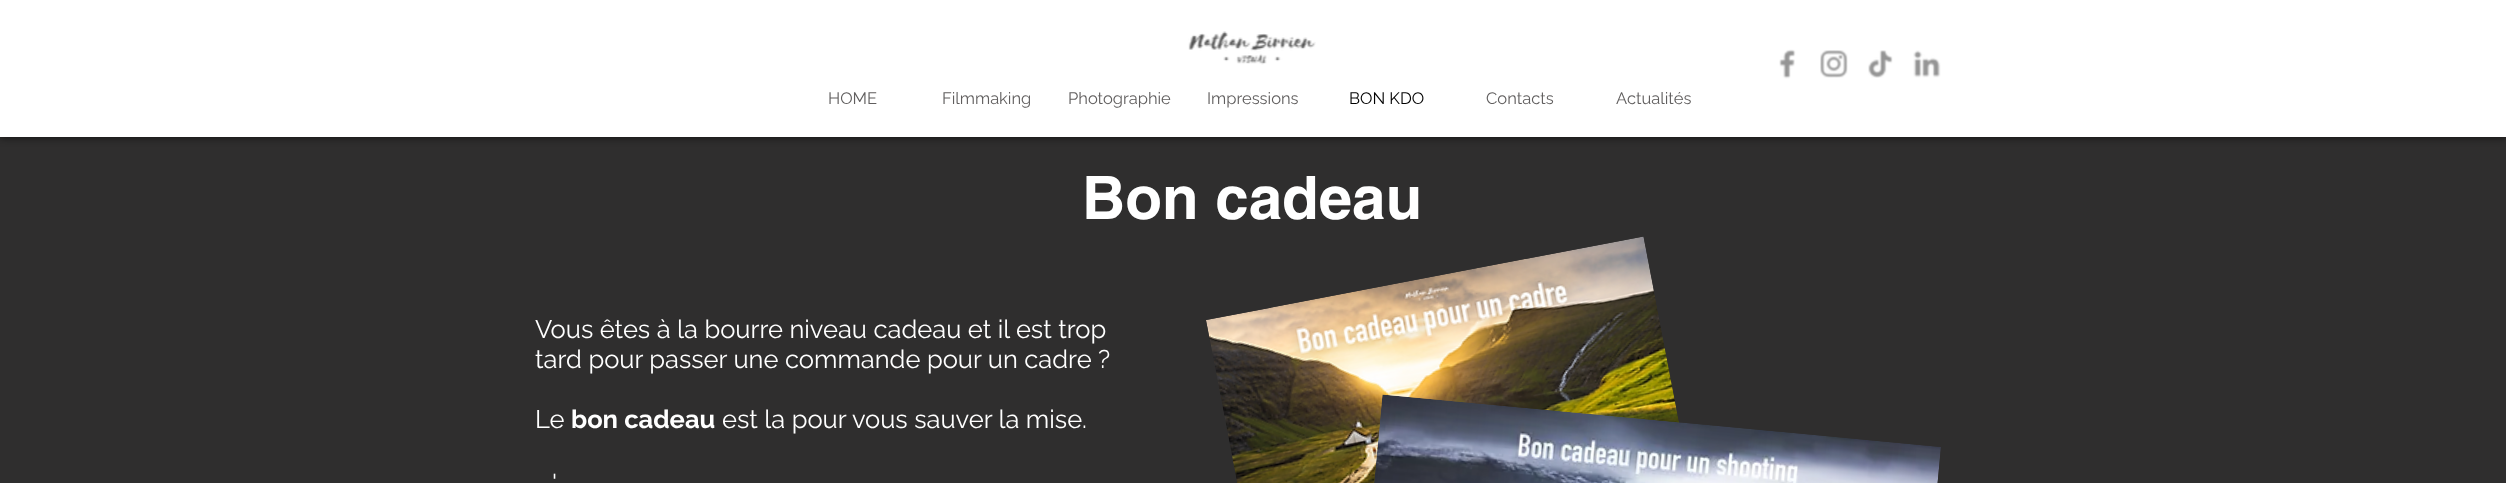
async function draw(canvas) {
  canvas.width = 2506
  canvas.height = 483
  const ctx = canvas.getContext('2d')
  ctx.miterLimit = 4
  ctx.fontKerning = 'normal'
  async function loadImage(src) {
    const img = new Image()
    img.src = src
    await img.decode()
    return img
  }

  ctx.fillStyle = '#2f2e2e'
  ctx.fillRect(0, 0, 2506, 483)
  ctx.fillStyle = '#000000b3'
  ctx.filter = 'blur(4px)'
  ctx.beginPath()
  ctx.rect(0, 0, 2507, 137)
  ctx.fill()
  ctx.filter = 'none'
  ctx.fillStyle = '#fff'
  ctx.fillRect(0, 0, 2506, 137)
  ctx.drawImage(await loadImage('image0.png'), 1188, 31, 128, 34)
  ctx.drawImage(await loadImage('image1.png'), 1779, 49, 17, 30)
  ctx.drawImage(await loadImage('image2.png'), 1820, 50, 28, 28)
  ctx.drawImage(await loadImage('image3.png'), 1868, 50, 25, 28)
  ctx.drawImage(await loadImage('image4.png'), 1913, 50, 28, 28)
  ctx.font = '16.5px Raleway'
  ctx.fillStyle = '#605e5e'
  ctx.fillText('HOME', 828, 104)
  ctx.fillText('Filmmaking', 942, 104)
  ctx.fillText('Photographie', 1068, 104)
  ctx.fillText('Impressions', 1207, 104)
  ctx.fillStyle = '#000'
  ctx.fillText('BON KDO', 1349, 104)
  ctx.fillStyle = '#605e5e'
  ctx.fillText('Contacts', 1486, 104)
  ctx.fillText('Actualités', 1616, 104)
  ctx.font = 'bold 60px helvetica'
  ctx.fillStyle = '#fff'
  ctx.fillText('Bon cadeau', 1082, 219)
  ctx.font = '25.5px Raleway'
  ctx.fillText('Vous êtes à la bourre niveau cadeau et il est trop', 535, 338)
  ctx.fillText('tard pour passer une commande pour un cadre ?', 535, 368)
  ctx.fillText('Le', 535, 428)
  ctx.font = 'bold 25.5px Raleway'
  ctx.fillText('bon cadeau', 571, 428)
  ctx.font = '25.5px Raleway'
  ctx.fillText('est la pour vous sauver la mise.', 722, 428)
  ctx.fillText('\'', 552, 492)
  ctx.drawImage(await loadImage('image5.png'), 1206, 236, 473, 247)
  ctx.drawImage(await loadImage('image6.png'), 1374, 394, 567, 89)
}

draw(document.querySelector('canvas'))
